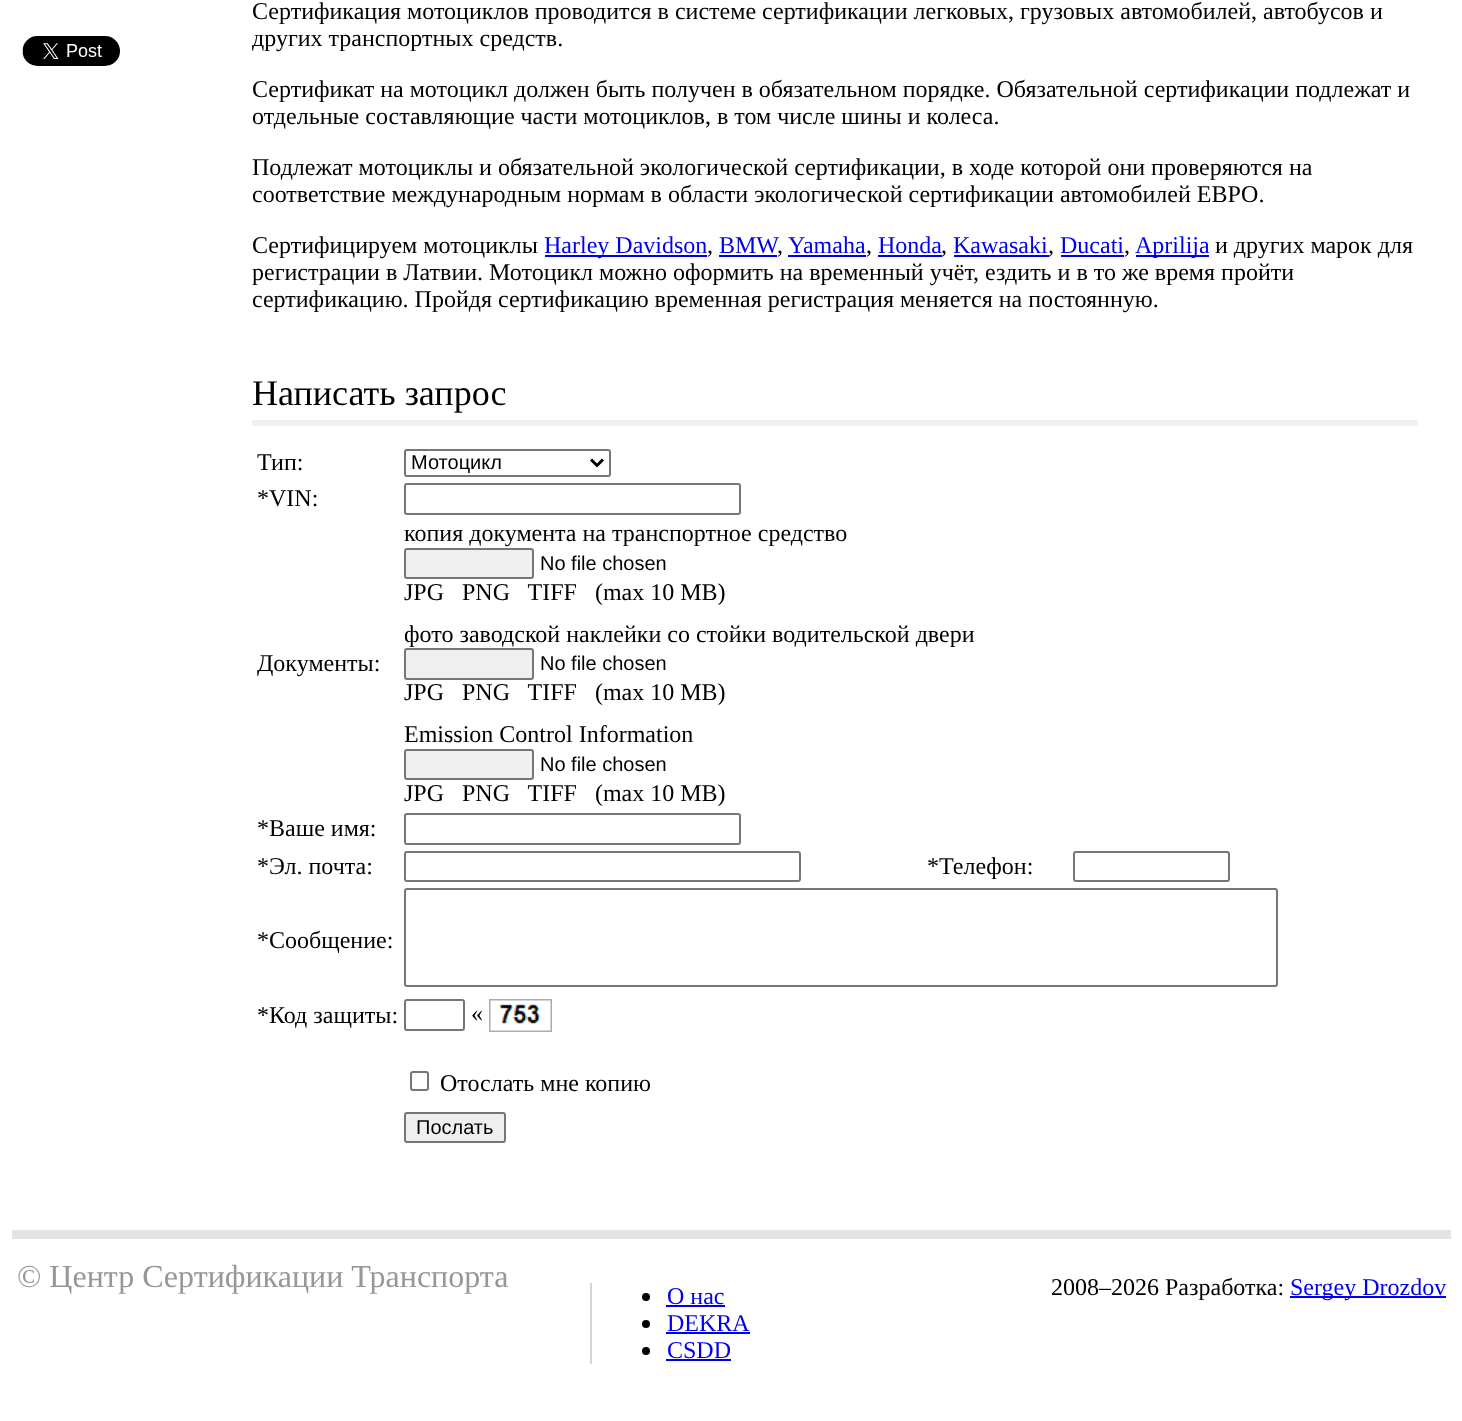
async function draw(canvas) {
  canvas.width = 1462
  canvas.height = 1421
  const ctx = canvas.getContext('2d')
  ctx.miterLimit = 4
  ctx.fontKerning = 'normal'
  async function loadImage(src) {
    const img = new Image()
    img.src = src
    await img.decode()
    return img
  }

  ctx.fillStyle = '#fff'
  ctx.fillRect(0, 0, 1462, 1421)
  ctx.drawImage(await loadImage('image0.png'), 22, 36, 98, 30)
  ctx.font = '24px Liberation Serif'
  ctx.fillStyle = '#000'
  ctx.fillText('Сертификация мотоциклов проводится в системе сертификации легковых, грузовых автомобилей, автобусов и', 252, 19)
  ctx.fillText('других транспортных средств.', 252, 46)
  ctx.fillText('Сертификат на мотоцикл должен быть получен в обязательном порядке. Обязательной сертификации подлежат и', 252, 97)
  ctx.fillText('отдельные составляющие части мотоциклов, в том числе шины и колеса.', 252, 124)
  ctx.fillText('Подлежат мотоциклы и обязательной экологической сертификации, в ходе которой они проверяются на', 252, 175)
  ctx.fillText('соответствие международным нормам в области экологической сертификации автомобилей ЕВРО.', 252, 202)
  ctx.fillText('Сертифицируем мотоциклы', 252, 253)
  ctx.fillStyle = '#00e'
  ctx.fillRect(545, 255, 162, 2)
  ctx.fillText('Harley Davidson', 544, 253)
  ctx.fillStyle = '#000'
  ctx.fillText(',', 707, 253)
  ctx.fillStyle = '#00e'
  ctx.fillText('BMW', 719, 253)
  ctx.fillRect(719, 255, 58, 2)
  ctx.fillStyle = '#000'
  ctx.fillText(',', 777, 253)
  ctx.fillStyle = '#00e'
  ctx.fillText('Yamaha', 788, 253)
  ctx.fillRect(788, 255, 78, 2)
  ctx.fillStyle = '#000'
  ctx.fillText(',', 866, 253)
  ctx.fillStyle = '#00e'
  ctx.fillText('Honda', 878, 253)
  ctx.fillRect(878, 255, 64, 2)
  ctx.fillStyle = '#000'
  ctx.fillText(',', 941, 253)
  ctx.fillStyle = '#00e'
  ctx.fillText('Kawasaki', 953, 253)
  ctx.fillRect(954, 255, 95, 2)
  ctx.fillStyle = '#000'
  ctx.fillText(',', 1048, 253)
  ctx.fillStyle = '#00e'
  ctx.fillText('Ducati', 1060, 253)
  ctx.fillRect(1061, 255, 63, 2)
  ctx.fillStyle = '#000'
  ctx.fillText(',', 1124, 253)
  ctx.fillStyle = '#00e'
  ctx.fillRect(1136, 255, 73, 2)
  ctx.fillText('Aprilija', 1135, 253)
  ctx.fillStyle = '#000'
  ctx.fillText('и других марок для', 1215, 253)
  ctx.fillText('регистрации в Латвии. Мотоцикл можно оформить на временный учёт, ездить и в то же время пройти', 252, 280)
  ctx.fillText('сертификацию. Пройдя сертификацию временная регистрация меняется на постоянную.', 252, 307)
  ctx.fillStyle = '#f0f0f0'
  ctx.fillRect(252, 420, 1166, 6)
  ctx.font = '36px Liberation Serif'
  ctx.fillStyle = '#000'
  ctx.fillText('Написать запрос', 252, 405)
  ctx.font = '24px Liberation Serif'
  ctx.fillText('Тип:', 257, 470)
  ctx.beginPath()
  ctx.roundRect(405, 450, 205, 26, 2)
  ctx.strokeStyle = '#767676'
  ctx.lineWidth = 2
  ctx.stroke()
  ctx.beginPath()
  ctx.moveTo(591, 459.5)
  ctx.lineTo(597, 465.5)
  ctx.lineTo(603, 459.5)
  ctx.strokeStyle = '#000'
  ctx.lineWidth = 3
  ctx.stroke()
  ctx.font = '20px Liberation Sans'
  ctx.fillText('Мотоцикл', 411, 469)
  ctx.font = '24px Liberation Serif'
  ctx.fillText('*VIN:', 257, 506)
  ctx.beginPath()
  ctx.roundRect(405, 484, 335, 30, 2)
  ctx.strokeStyle = '#767676'
  ctx.lineWidth = 2
  ctx.stroke()
  ctx.fillText('Документы:', 257, 671)
  ctx.fillText('копия документа на транспортное средство', 404, 541)
  ctx.fillStyle = '#efefef'
  ctx.beginPath()
  ctx.roundRect(405, 549, 128, 29, 2)
  ctx.fill()
  ctx.stroke()
  ctx.font = '20px Liberation Sans'
  ctx.fillStyle = '#000'
  ctx.fillText('No file chosen', 540, 570)
  ctx.font = '24px Liberation Serif'
  ctx.fillText('JPG   PNG   TIFF   (max 10 MB)', 404, 600)
  ctx.fillText('фото заводской наклейки со стойки водительской двери', 404, 642)
  ctx.fillStyle = '#efefef'
  ctx.beginPath()
  ctx.roundRect(405, 649, 128, 30, 2)
  ctx.fill()
  ctx.stroke()
  ctx.font = '20px Liberation Sans'
  ctx.fillStyle = '#000'
  ctx.fillText('No file chosen', 540, 670)
  ctx.font = '24px Liberation Serif'
  ctx.fillText('JPG   PNG   TIFF   (max 10 MB)', 404, 700)
  ctx.fillText('Emission Control Information', 404, 742)
  ctx.fillStyle = '#efefef'
  ctx.beginPath()
  ctx.roundRect(405, 750, 128, 29, 2)
  ctx.fill()
  ctx.stroke()
  ctx.font = '20px Liberation Sans'
  ctx.fillStyle = '#000'
  ctx.fillText('No file chosen', 540, 771)
  ctx.font = '24px Liberation Serif'
  ctx.fillText('JPG   PNG   TIFF   (max 10 MB)', 404, 801)
  ctx.fillText('*Ваше имя:', 257, 836)
  ctx.beginPath()
  ctx.roundRect(405, 814, 335, 30, 2)
  ctx.stroke()
  ctx.fillText('*Эл. почта:', 257, 874)
  ctx.beginPath()
  ctx.roundRect(405, 852, 395, 29, 2)
  ctx.stroke()
  ctx.fillText('*Телефон:', 927, 874)
  ctx.beginPath()
  ctx.roundRect(1074, 852, 155, 29, 2)
  ctx.stroke()
  ctx.fillText('*Сообщение:', 257, 948)
  ctx.beginPath()
  ctx.roundRect(405, 889, 872, 97, 2)
  ctx.stroke()
  ctx.fillText('*Код защиты:', 257, 1023)
  ctx.beginPath()
  ctx.roundRect(405, 1000, 59, 30, 2)
  ctx.stroke()
  ctx.strokeStyle = '#a5adb5'
  ctx.strokeRect(490, 1000, 61, 31)
  ctx.fillText('«', 471, 1021)
  ctx.drawImage(await loadImage('image1.png'), 490, 1000, 61, 31)
  ctx.beginPath()
  ctx.roundRect(411, 1072, 17, 18, 2)
  ctx.strokeStyle = '#767676'
  ctx.stroke()
  ctx.fillText('Отослать мне копию', 440, 1091)
  ctx.fillStyle = '#efefef'
  ctx.beginPath()
  ctx.roundRect(405, 1113, 100, 29, 2)
  ctx.fill()
  ctx.stroke()
  ctx.font = '20px Liberation Sans'
  ctx.fillStyle = '#000'
  ctx.fillText('Послать', 416, 1134)
  ctx.fillStyle = '#e2e4e6'
  ctx.fillRect(12, 1230, 1439, 9)
  ctx.font = '32px Liberation Serif'
  ctx.fillStyle = '#959799'
  ctx.fillText('© Центр Сертификации Транспорта', 17, 1287)
  ctx.fillStyle = '#d3d5d7'
  ctx.fillRect(590, 1283, 2, 81)
  ctx.fillStyle = '#000'
  ctx.beginPath()
  ctx.arc(646, 1297, 4, 0, 2 * Math.PI)
  ctx.fill()
  ctx.font = '24px Liberation Serif'
  ctx.fillStyle = '#00e'
  ctx.fillText('О нас', 667, 1304)
  ctx.fillRect(666, 1305, 59, 2)
  ctx.fillStyle = '#000'
  ctx.beginPath()
  ctx.arc(646, 1324, 4, 0, 2 * Math.PI)
  ctx.fill()
  ctx.fillStyle = '#00e'
  ctx.fillText('DEKRA', 667, 1331)
  ctx.fillRect(666, 1332, 84, 2)
  ctx.fillStyle = '#000'
  ctx.beginPath()
  ctx.arc(646, 1351, 4, 0, 2 * Math.PI)
  ctx.fill()
  ctx.fillStyle = '#00e'
  ctx.fillText('CSDD', 667, 1358)
  ctx.fillRect(666, 1359, 65, 2)
  ctx.fillStyle = '#000'
  ctx.fillText('2008–2026 Разработка:', 1051, 1295)
  ctx.fillStyle = '#00e'
  ctx.fillRect(1290, 1296, 156, 2)
  ctx.fillText('Sergey Drozdov', 1290, 1295)
}

draw(document.querySelector('canvas'))
